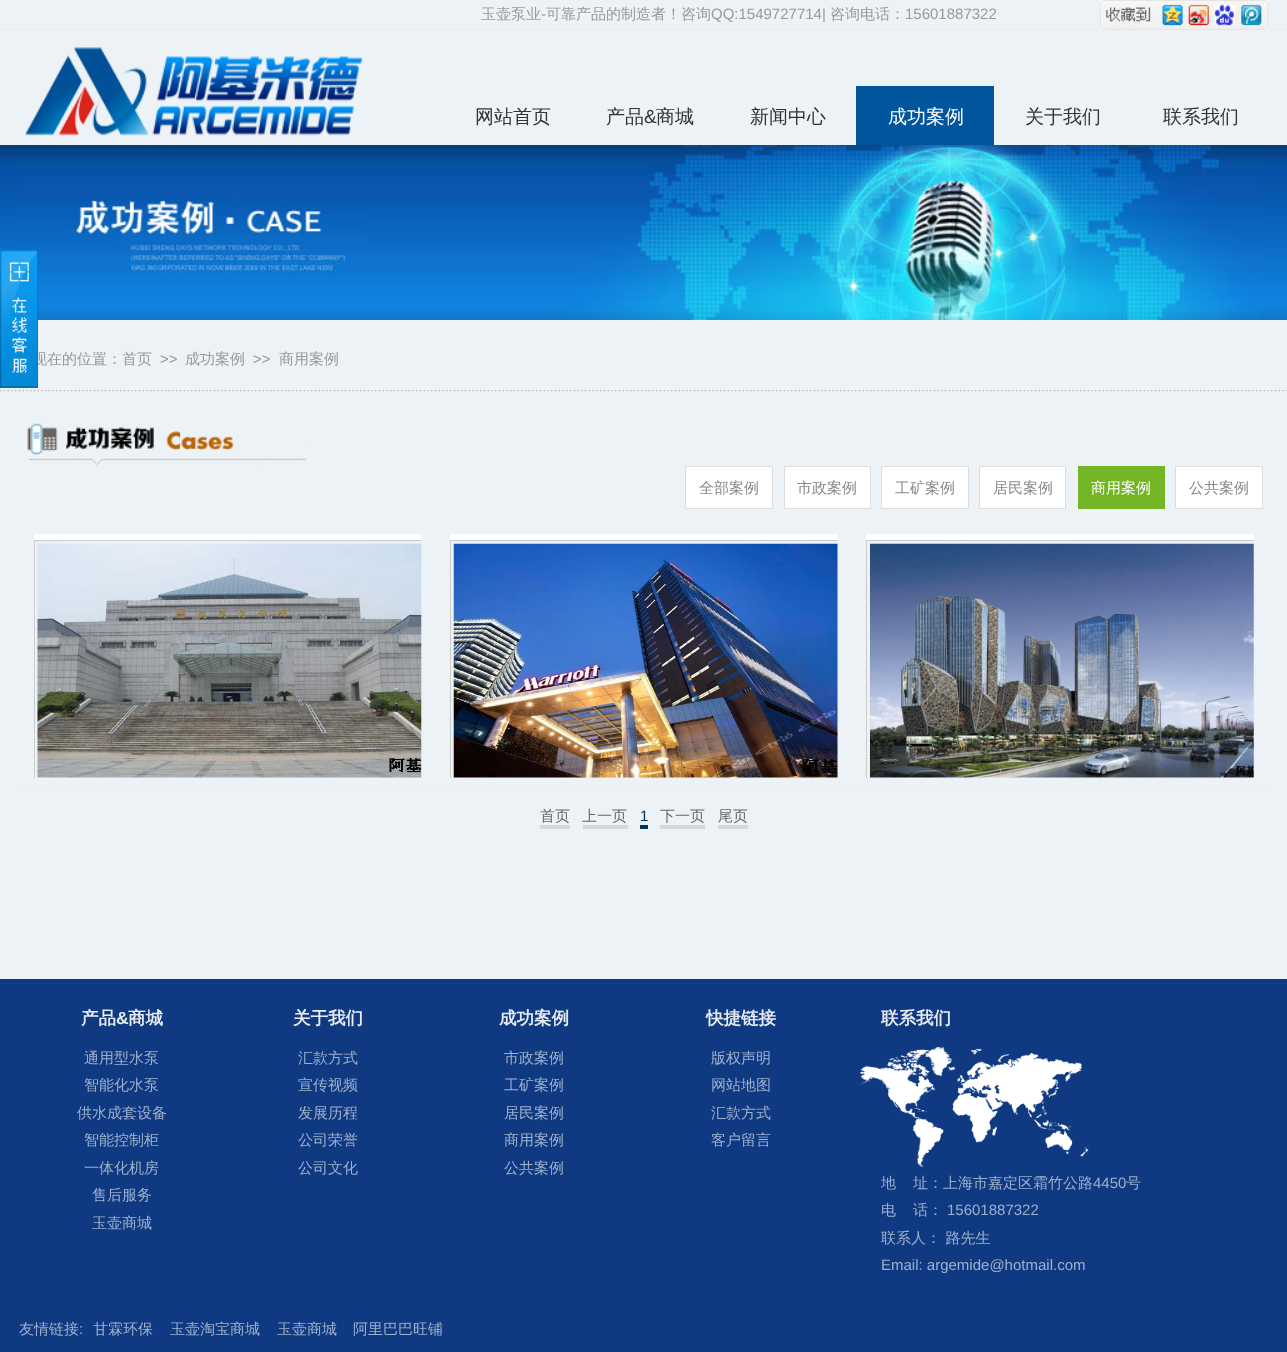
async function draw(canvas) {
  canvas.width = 1287
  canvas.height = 1352
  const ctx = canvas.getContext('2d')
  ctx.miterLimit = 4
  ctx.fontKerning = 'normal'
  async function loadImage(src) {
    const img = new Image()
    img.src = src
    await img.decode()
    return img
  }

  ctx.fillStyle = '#ecf2f5'
  ctx.fillRect(0, 0, 1287, 1352)
  ctx.fillStyle = '#e6edf1'
  ctx.fillRect(0, 29, 1287, 1)
  ctx.font = '500 15px WenQuanYi Zen Hei'
  ctx.fillStyle = '#999'
  ctx.fillText('玉壶泵业', 481, 19)
  ctx.font = '15px Liberation Sans'
  ctx.fillText('-', 541, 19)
  ctx.font = '500 15px WenQuanYi Zen Hei'
  ctx.fillText('可靠产品的制造者！咨询', 546, 19)
  ctx.font = '15px Liberation Sans'
  ctx.fillText('QQ:1549727714|', 711, 19)
  ctx.font = '500 15px WenQuanYi Zen Hei'
  ctx.fillText('咨询电话：', 830, 19)
  ctx.font = '15px Liberation Sans'
  ctx.fillText('15601887322', 905, 19)
  ctx.drawImage(await loadImage('image0.png'), 1100, 0, 169, 30)
  ctx.drawImage(await loadImage('image1.png'), 25, 47, 338, 89)
  ctx.font = '500 19px WenQuanYi Zen Hei'
  ctx.fillStyle = '#333'
  ctx.fillText('网站首页', 475, 123)
  ctx.fillText('产品', 606, 123)
  ctx.font = '19px Liberation Sans'
  ctx.fillText('&', 644, 123)
  ctx.font = '500 19px WenQuanYi Zen Hei'
  ctx.fillText('商城', 656, 123)
  ctx.fillText('新闻中心', 750, 123)
  ctx.fillStyle = '#01559d'
  ctx.fillRect(856, 86, 138, 59)
  ctx.fillStyle = '#fff'
  ctx.fillText('成功案例', 888, 123)
  ctx.fillStyle = '#333'
  ctx.fillText('关于我们', 1025, 123)
  ctx.fillText('联系我们', 1163, 123)
  ctx.drawImage(await loadImage('image2.png'), 0, 145, 1287, 175)
  ctx.drawImage(await loadImage('image3.png'), 19, 145, 1242, 175)
  ctx.drawImage(await loadImage('image4.png'), 0, 390, 1287, 2)
  ctx.font = '500 15px WenQuanYi Zen Hei'
  ctx.fillStyle = '#999'
  ctx.fillText('现在的位置：首页', 32, 364)
  ctx.font = '15px Liberation Sans'
  ctx.fillText('>>', 160, 364)
  ctx.font = '500 15px WenQuanYi Zen Hei'
  ctx.fillText('成功案例', 185, 364)
  ctx.font = '15px Liberation Sans'
  ctx.fillText('>>', 253, 364)
  ctx.font = '500 15px WenQuanYi Zen Hei'
  ctx.fillText('商用案例', 279, 364)
  ctx.drawImage(await loadImage('image5.png'), 27, 423, 280, 42)
  ctx.fillStyle = '#fff'
  ctx.beginPath()
  ctx.rect(685.5, 466.5, 87, 42)
  ctx.fill()
  ctx.strokeStyle = '#ddd'
  ctx.stroke()
  ctx.fillStyle = '#888'
  ctx.fillText('全部案例', 699, 493)
  ctx.fillStyle = '#fff'
  ctx.beginPath()
  ctx.rect(784.5, 466.5, 86, 42)
  ctx.fill()
  ctx.stroke()
  ctx.fillStyle = '#888'
  ctx.fillText('市政案例', 797, 493)
  ctx.fillStyle = '#fff'
  ctx.beginPath()
  ctx.rect(881.5, 466.5, 87, 42)
  ctx.fill()
  ctx.stroke()
  ctx.fillStyle = '#888'
  ctx.fillText('工矿案例', 895, 493)
  ctx.fillStyle = '#fff'
  ctx.beginPath()
  ctx.rect(979.5, 466.5, 86, 42)
  ctx.fill()
  ctx.stroke()
  ctx.fillStyle = '#888'
  ctx.fillText('居民案例', 993, 493)
  ctx.fillStyle = '#72b626'
  ctx.fillRect(1078, 466, 87, 43)
  ctx.fillStyle = '#fff'
  ctx.fillText('商用案例', 1091, 493)
  ctx.beginPath()
  ctx.rect(1175.5, 466.5, 87, 42)
  ctx.fill()
  ctx.stroke()
  ctx.fillStyle = '#888'
  ctx.fillText('公共案例', 1189, 493)
  ctx.fillStyle = '#fff'
  ctx.fillRect(34, 534, 387, 6)
  ctx.save()
  ctx.beginPath()
  ctx.rect(34, 540, 387, 238)
  ctx.clip()
  ctx.strokeStyle = '#ccc'
  ctx.strokeRect(34.5, 540.5, 394, 244)
  ctx.restore()
  ctx.drawImage(await loadImage('image6.png'), 37, 543, 385, 235)
  ctx.fillRect(450, 534, 388, 6)
  ctx.save()
  ctx.beginPath()
  ctx.rect(450, 540, 388, 238)
  ctx.clip()
  ctx.strokeStyle = '#ccc'
  ctx.strokeRect(450.5, 540.5, 394, 244)
  ctx.restore()
  ctx.drawImage(await loadImage('image7.png'), 453, 543, 385, 235)
  ctx.fillRect(866, 534, 388, 6)
  ctx.save()
  ctx.beginPath()
  ctx.rect(866, 540, 388, 238)
  ctx.clip()
  ctx.strokeStyle = '#ccc'
  ctx.strokeRect(866.5, 540.5, 394, 244)
  ctx.restore()
  ctx.drawImage(await loadImage('image8.png'), 870, 543, 384, 235)
  ctx.fillStyle = '#eee'
  ctx.fillRect(19, 790, 1250, 1)
  ctx.fillStyle = '#666'
  ctx.fillText('首页', 540, 821)
  ctx.fillStyle = '#d7d7d7'
  ctx.fillRect(540, 825, 30, 4)
  ctx.fillStyle = '#666'
  ctx.fillText('上一页', 582, 821)
  ctx.fillStyle = '#d7d7d7'
  ctx.fillRect(583, 825, 45, 4)
  ctx.font = '15px Liberation Sans'
  ctx.fillStyle = '#01335b'
  ctx.fillText('1', 640, 821)
  ctx.fillRect(640, 825, 8, 4)
  ctx.font = '500 15px WenQuanYi Zen Hei'
  ctx.fillStyle = '#666'
  ctx.fillText('下一页', 660, 821)
  ctx.fillStyle = '#d7d7d7'
  ctx.fillRect(660, 825, 45, 4)
  ctx.fillStyle = '#666'
  ctx.fillText('尾页', 718, 821)
  ctx.fillStyle = '#d7d7d7'
  ctx.fillRect(718, 825, 30, 4)
  ctx.fillStyle = '#0f3a82'
  ctx.fillRect(0, 979, 1287, 373)
  ctx.font = 'bold 17.5px WenQuanYi Zen Hei'
  ctx.fillStyle = '#e7ecf3'
  ctx.fillText('产品', 81, 1024)
  ctx.font = 'bold 17.5px Liberation Sans'
  ctx.fillText('&', 116, 1024)
  ctx.font = 'bold 17.5px WenQuanYi Zen Hei'
  ctx.fillText('商城', 128, 1024)
  ctx.font = '500 15px WenQuanYi Zen Hei'
  ctx.fillStyle = '#9fb0cd'
  ctx.fillText('通用型水泵', 84, 1063)
  ctx.fillText('智能化水泵', 84, 1090)
  ctx.fillText('供水成套设备', 77, 1118)
  ctx.fillText('智能控制柜', 84, 1145)
  ctx.fillText('一体化机房', 84, 1173)
  ctx.fillText('售后服务', 92, 1200)
  ctx.fillText('玉壶商城', 92, 1228)
  ctx.font = 'bold 17.5px WenQuanYi Zen Hei'
  ctx.fillStyle = '#e7ecf3'
  ctx.fillText('关于我们', 293, 1024)
  ctx.font = '500 15px WenQuanYi Zen Hei'
  ctx.fillStyle = '#9fb0cd'
  ctx.fillText('汇款方式', 298, 1063)
  ctx.fillText('宣传视频', 298, 1090)
  ctx.fillText('发展历程', 298, 1118)
  ctx.fillText('公司荣誉', 298, 1145)
  ctx.fillText('公司文化', 298, 1173)
  ctx.font = 'bold 17.5px WenQuanYi Zen Hei'
  ctx.fillStyle = '#e7ecf3'
  ctx.fillText('成功案例', 499, 1024)
  ctx.font = '500 15px WenQuanYi Zen Hei'
  ctx.fillStyle = '#9fb0cd'
  ctx.fillText('市政案例', 504, 1063)
  ctx.fillText('工矿案例', 504, 1090)
  ctx.fillText('居民案例', 504, 1118)
  ctx.fillText('商用案例', 504, 1145)
  ctx.fillText('公共案例', 504, 1173)
  ctx.font = 'bold 17.5px WenQuanYi Zen Hei'
  ctx.fillStyle = '#e7ecf3'
  ctx.fillText('快捷链接', 706, 1024)
  ctx.font = '500 15px WenQuanYi Zen Hei'
  ctx.fillStyle = '#9fb0cd'
  ctx.fillText('版权声明', 711, 1063)
  ctx.fillText('网站地图', 711, 1090)
  ctx.fillText('汇款方式', 711, 1118)
  ctx.fillText('客户留言', 711, 1145)
  ctx.font = 'bold 17.5px WenQuanYi Zen Hei'
  ctx.fillStyle = '#e7ecf3'
  ctx.fillText('联系我们', 881, 1024)
  ctx.drawImage(await loadImage('image9.png'), 859, 1047, 230, 120)
  ctx.font = '500 15px WenQuanYi Zen Hei'
  ctx.fillStyle = '#9fb0cd'
  ctx.fillText('地', 881, 1188)
  ctx.fillText('址：上海市嘉定区霜竹公路', 913, 1188)
  ctx.font = '15px Liberation Sans'
  ctx.fillText('4450', 1093, 1188)
  ctx.font = '500 15px WenQuanYi Zen Hei'
  ctx.fillText('号', 1126, 1188)
  ctx.fillText('电', 881, 1215)
  ctx.fillText('话：', 913, 1215)
  ctx.font = '15px Liberation Sans'
  ctx.fillText('15601887322', 947, 1215)
  ctx.font = '500 15px WenQuanYi Zen Hei'
  ctx.fillText('联系人： 路先生', 881, 1243)
  ctx.font = '15px Liberation Sans'
  ctx.fillText('Email: argemide@hotmail.com', 881, 1270)
  ctx.font = '500 15px WenQuanYi Zen Hei'
  ctx.fillText('友情链接', 19, 1334)
  ctx.font = '15px Liberation Sans'
  ctx.fillText(':', 79, 1334)
  ctx.font = '500 15px WenQuanYi Zen Hei'
  ctx.fillText('甘霖环保', 93, 1334)
  ctx.fillText('玉壶淘宝商城', 170, 1334)
  ctx.fillText('玉壶商城', 277, 1334)
  ctx.fillText('阿里巴巴旺铺', 353, 1334)
  ctx.fillStyle = '#0176ba'
  ctx.fillRect(0, 250, 38, 138)
  ctx.drawImage(await loadImage('image10.png'), 0, 250, 38, 138)
}

draw(document.querySelector('canvas'))
